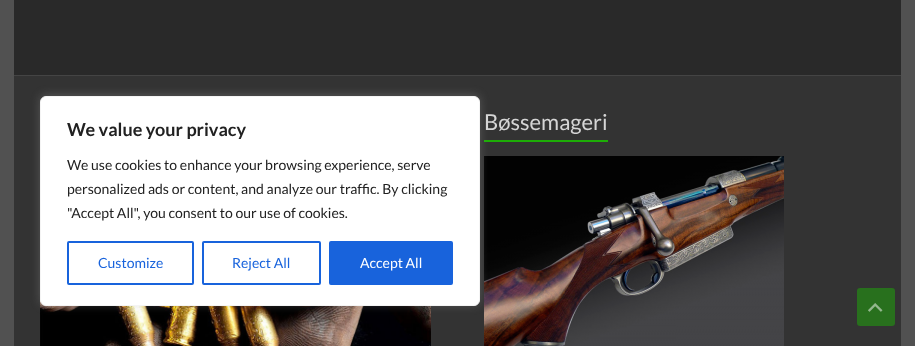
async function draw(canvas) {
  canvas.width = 915
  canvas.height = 346
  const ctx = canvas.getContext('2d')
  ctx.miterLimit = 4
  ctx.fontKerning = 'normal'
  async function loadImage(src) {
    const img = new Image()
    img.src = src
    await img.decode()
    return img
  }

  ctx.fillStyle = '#515151'
  ctx.fillRect(0, 0, 915, 346)
  ctx.fillStyle = '#333'
  ctx.fillRect(14, 76, 887, 270)
  ctx.fillStyle = '#1dad06'
  ctx.fillRect(484, 140, 124, 2)
  ctx.drawImage(await loadImage('image0.png'), 484, 156, 300, 190)
  ctx.drawImage(await loadImage('image1.png'), 40, 300, 391, 46)
  ctx.fillStyle = '#acabab4d'
  ctx.filter = 'blur(5px)'
  ctx.beginPath()
  ctx.roundRect(40, 95, 440, 210, 6)
  ctx.fill()
  ctx.filter = 'none'
  ctx.fillStyle = '#fff'
  ctx.beginPath()
  ctx.roundRect(40.5, 96.5, 439, 209, 5.5)
  ctx.fill()
  ctx.strokeStyle = '#f4f4f4'
  ctx.stroke()
  ctx.font = 'bold 18px Lato'
  ctx.fillStyle = '#212121'
  ctx.fillText('We value your privacy', 67, 136)
  ctx.font = '14px Lato'
  ctx.fillText('We use cookies to enhance your browsing experience, serve', 67, 170)
  ctx.fillText('personalized ads or content, and analyze our traffic. By clicking', 67, 194)
  ctx.fillText('"Accept All", you consent to our use of cookies.', 67, 218)
  ctx.beginPath()
  ctx.roundRect(68, 242, 125, 42, 1)
  ctx.strokeStyle = '#1863dc'
  ctx.lineWidth = 2
  ctx.stroke()
  ctx.fillStyle = '#1863dc'
  ctx.fillText('Customize', 98, 268)
  ctx.beginPath()
  ctx.roundRect(203, 242, 117, 42, 1)
  ctx.stroke()
  ctx.fillText('Reject All', 232, 268)
  ctx.beginPath()
  ctx.roundRect(330, 242, 122, 42, 1)
  ctx.fill()
  ctx.stroke()
  ctx.fillStyle = '#fff'
  ctx.fillText('Accept All', 360, 268)
  ctx.fillStyle = '#292929'
  ctx.fillRect(14, 0, 887, 75)
  ctx.fillStyle = '#444'
  ctx.fillRect(14, 75, 887, 1)
  ctx.font = '22px Lato'
  ctx.fillStyle = '#d5d5d5'
  ctx.fillText('Bøssemageri', 484, 130)
  ctx.fillStyle = '#28701d'
  ctx.beginPath()
  ctx.roundRect(857, 288, 38, 38, 3)
  ctx.fill()
  ctx.drawImage(await loadImage('image2.png'), 868, 303, 15, 9)
}

draw(document.querySelector('canvas'))
